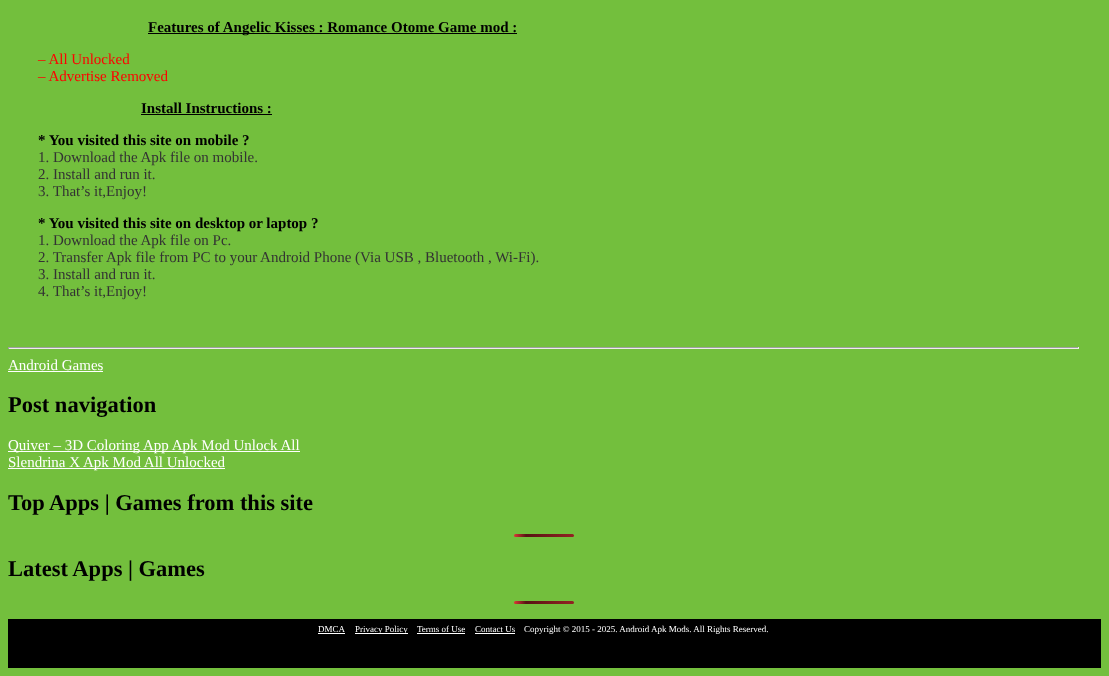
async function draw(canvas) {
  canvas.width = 1109
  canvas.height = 676
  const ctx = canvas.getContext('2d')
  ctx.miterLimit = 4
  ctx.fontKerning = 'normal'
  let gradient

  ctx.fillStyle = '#73bf3d'
  ctx.fillRect(0, 0, 1109, 676)
  ctx.fillStyle = '#000'
  ctx.fillRect(148, 33, 369, 1)
  ctx.font = 'bold 15px Liberation Serif'
  ctx.fillText('Features of Angelic Kisses : Romance Otome Game mod :', 148, 32)
  ctx.font = '15px Liberation Serif'
  ctx.fillStyle = '#f00'
  ctx.fillText('– All Unlocked', 38, 64)
  ctx.fillText('– Advertise Removed', 38, 81)
  ctx.font = 'bold 15px Liberation Serif'
  ctx.fillStyle = '#000'
  ctx.fillText('Install Instructions :', 141, 113)
  ctx.fillRect(141, 114, 131, 1)
  ctx.fillText('* You visited this site on mobile ?', 38, 145)
  ctx.font = '15px Liberation Serif'
  ctx.fillStyle = '#333'
  ctx.fillText('1. Download the Apk file on mobile.', 38, 162)
  ctx.fillText('2. Install and run it.', 38, 179)
  ctx.fillText('3. That’s it,Enjoy!', 38, 196)
  ctx.font = 'bold 15px Liberation Serif'
  ctx.fillStyle = '#000'
  ctx.fillText('* You visited this site on desktop or laptop ?', 38, 228)
  ctx.font = '15px Liberation Serif'
  ctx.fillStyle = '#333'
  ctx.fillText('1. Download the Apk file on Pc.', 38, 245)
  ctx.fillText('2. Transfer Apk file from PC to your Android Phone (Via USB , Bluetooth , Wi-Fi).', 38, 262)
  ctx.fillText('3. Install and run it.', 38, 279)
  ctx.fillText('4. That’s it,Enjoy!', 38, 296)
  ctx.fillStyle = '#9f9f9f'
  ctx.fillRect(8, 347, 1071, 1)
  ctx.fillStyle = '#eee'
  ctx.fillRect(1078, 347, 1, 2)
  ctx.fillRect(8, 348, 1071, 1)
  ctx.fillStyle = '#9f9f9f'
  ctx.fillRect(8, 347, 1, 2)
  ctx.fillStyle = '#fff'
  ctx.fillText('Android Games', 8, 370)
  ctx.fillRect(8, 371, 95, 1)
  ctx.font = 'bold 22.5px Liberation Serif'
  ctx.fillStyle = '#000'
  ctx.fillText('Post navigation', 8, 412)
  ctx.fillStyle = '#fff'
  ctx.fillRect(8, 451, 292, 1)
  ctx.font = '15px Liberation Serif'
  ctx.fillText('Quiver – 3D Coloring App Apk Mod Unlock All', 8, 450)
  ctx.fillRect(8, 468, 217, 1)
  ctx.fillText('Slendrina X Apk Mod All Unlocked', 8, 467)
  ctx.font = 'bold 22.5px Liberation Serif'
  ctx.fillStyle = '#000'
  ctx.fillText('Top Apps | Games from this site', 8, 510)
  gradient = ctx.createLinearGradient(514, 536, 634, 536)
  gradient.addColorStop(0, '#dd3737')
  gradient.addColorStop(0.1, '#571313')
  gradient.addColorStop(1, '#dd3737')
  ctx.fillStyle = gradient
  ctx.beginPath()
  ctx.roundRect(514, 534, 60, 3, 1.5)
  ctx.fill()
  ctx.fillStyle = '#000'
  ctx.fillText('Latest Apps | Games', 8, 576)
  gradient = ctx.createLinearGradient(514, 603, 634, 603)
  gradient.addColorStop(0, '#dd3737')
  gradient.addColorStop(0.1, '#571313')
  gradient.addColorStop(1, '#dd3737')
  ctx.fillStyle = gradient
  ctx.beginPath()
  ctx.roundRect(514, 601, 60, 3, 1.5)
  ctx.fill()
  ctx.fillStyle = '#000'
  ctx.fillRect(8, 619, 1093, 49)
  ctx.font = '9px Liberation Serif'
  ctx.fillStyle = '#fff'
  ctx.fillText('DMCA', 318, 632)
  ctx.fillRect(318, 633, 27, 1)
  ctx.fillRect(355, 633, 53, 1)
  ctx.fillText('Privacy Policy', 355, 632)
  ctx.fillText('Terms of Use', 417, 632)
  ctx.fillRect(417, 633, 48, 1)
  ctx.fillText('Contact Us', 475, 632)
  ctx.fillRect(475, 633, 40, 1)
  ctx.fillText('Copyright © 2015 - 2025. Android Apk Mods. All Rights Reserved.', 524, 632)
}

draw(document.querySelector('canvas'))
